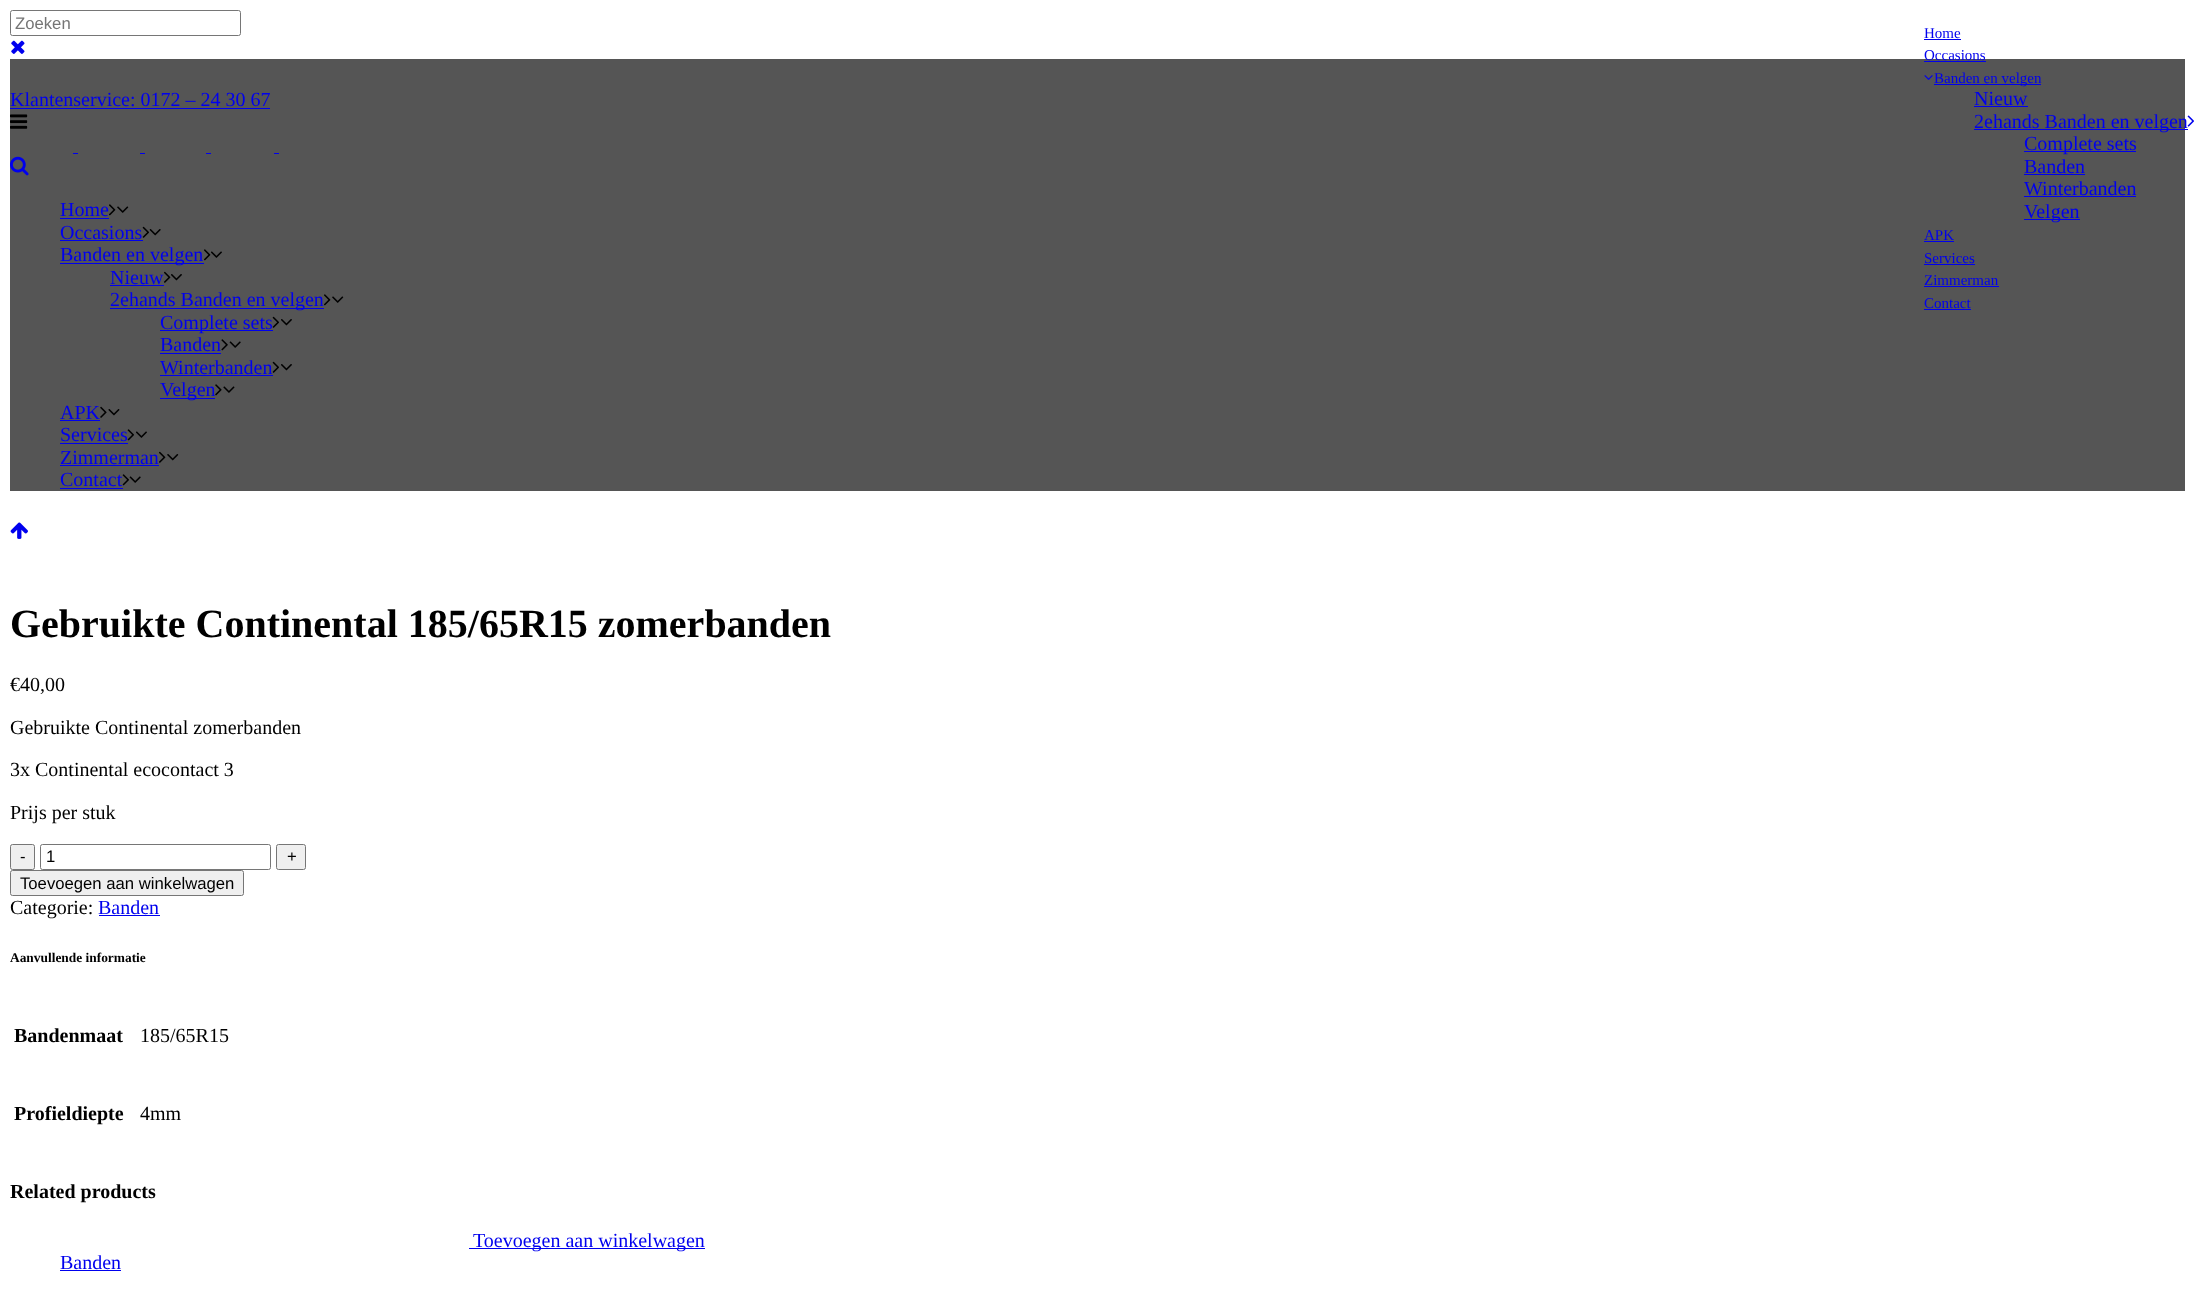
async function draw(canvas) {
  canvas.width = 2194
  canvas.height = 1316
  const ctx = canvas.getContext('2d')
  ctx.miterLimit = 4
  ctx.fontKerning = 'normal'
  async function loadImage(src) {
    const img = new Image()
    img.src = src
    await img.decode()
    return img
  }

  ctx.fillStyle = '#fff'
  ctx.fillRect(0, 0, 2194, 1316)
  ctx.beginPath()
  ctx.roundRect(10.5, 10.5, 230, 25, 2)
  ctx.strokeStyle = '#767676'
  ctx.stroke()
  ctx.font = '16.7px Liberation Sans'
  ctx.fillStyle = '#757575'
  ctx.fillText('Zoeken', 15, 29)
  ctx.drawImage(await loadImage('image0.png'), 11, 40, 14, 14)
  ctx.fillStyle = '#555'
  ctx.fillRect(10, 59, 2175, 432)
  ctx.drawImage(await loadImage('image1.png'), 10, 114, 18, 15)
  ctx.fillStyle = '#00e'
  ctx.fillRect(73, 153, 5, 1)
  ctx.fillRect(140, 153, 5, 1)
  ctx.fillRect(206, 153, 5, 1)
  ctx.fillRect(274, 153, 5, 1)
  ctx.font = '15px Liberation Serif'
  ctx.fillText('Home', 1924, 38)
  ctx.fillRect(1924, 39, 37, 1)
  ctx.fillText('Occasions', 1924, 60)
  ctx.fillRect(1924, 61, 62, 1)
  ctx.drawImage(await loadImage('image2.png'), 1924, 75, 9, 5)
  ctx.fillRect(1934, 84, 107, 1)
  ctx.fillText('Banden en velgen', 1934, 83)
  ctx.font = '20px Liberation Serif'
  ctx.fillText('Nieuw', 1974, 105)
  ctx.fillRect(1974, 106, 54, 1)
  ctx.fillRect(1974, 129, 214, 1)
  ctx.fillText('2ehands Banden en velgen', 1974, 128)
  ctx.drawImage(await loadImage('image3.png'), 2187, 115, 7, 12)
  ctx.fillRect(2024, 151, 112, 1)
  ctx.fillText('Complete sets', 2024, 150)
  ctx.fillText('Banden', 2024, 173)
  ctx.fillRect(2024, 174, 61, 1)
  ctx.fillText('Winterbanden', 2024, 195)
  ctx.fillRect(2024, 196, 112, 1)
  ctx.fillRect(2024, 219, 56, 1)
  ctx.fillText('Velgen', 2024, 218)
  ctx.font = '15px Liberation Serif'
  ctx.fillText('APK', 1924, 240)
  ctx.fillRect(1924, 241, 30, 1)
  ctx.fillText('Services', 1924, 263)
  ctx.fillRect(1924, 264, 51, 1)
  ctx.fillText('Zimmerman', 1924, 285)
  ctx.fillRect(1924, 286, 75, 1)
  ctx.fillText('Contact', 1924, 308)
  ctx.fillRect(1924, 309, 47, 1)
  ctx.drawImage(await loadImage('image4.png'), 10, 156, 19, 20)
  ctx.font = '20px Liberation Serif'
  ctx.fillText('Home', 60, 216)
  ctx.fillRect(60, 218, 49, 1)
  ctx.drawImage(await loadImage('image5.png'), 109, 204, 7, 12)
  ctx.drawImage(await loadImage('image6.png'), 117, 206, 12, 7)
  ctx.fillText('Occasions', 60, 239)
  ctx.fillRect(60, 240, 83, 1)
  ctx.drawImage(await loadImage('image7.png'), 142, 226, 7, 12)
  ctx.drawImage(await loadImage('image8.png'), 149, 229, 12, 7)
  ctx.fillRect(60, 263, 144, 1)
  ctx.fillText('Banden en velgen', 60, 261)
  ctx.drawImage(await loadImage('image5.png'), 204, 249, 7, 12)
  ctx.drawImage(await loadImage('image9.png'), 211, 251, 11, 7)
  ctx.fillText('Nieuw', 110, 284)
  ctx.fillRect(110, 285, 54, 1)
  ctx.drawImage(await loadImage('image10.png'), 164, 271, 7, 12)
  ctx.drawImage(await loadImage('image11.png'), 171, 274, 11, 7)
  ctx.fillRect(110, 308, 214, 1)
  ctx.fillText('2ehands Banden en velgen', 110, 306)
  ctx.drawImage(await loadImage('image5.png'), 324, 294, 7, 12)
  ctx.drawImage(await loadImage('image6.png'), 332, 296, 12, 7)
  ctx.fillRect(160, 330, 113, 1)
  ctx.fillText('Complete sets', 160, 329)
  ctx.drawImage(await loadImage('image12.png'), 272, 316, 7, 12)
  ctx.drawImage(await loadImage('image11.png'), 281, 319, 11, 7)
  ctx.fillText('Banden', 160, 351)
  ctx.fillRect(160, 353, 61, 1)
  ctx.drawImage(await loadImage('image13.png'), 221, 339, 7, 12)
  ctx.drawImage(await loadImage('image14.png'), 229, 341, 12, 7)
  ctx.fillText('Winterbanden', 160, 374)
  ctx.fillRect(160, 375, 113, 1)
  ctx.drawImage(await loadImage('image7.png'), 272, 361, 7, 12)
  ctx.drawImage(await loadImage('image11.png'), 281, 364, 11, 7)
  ctx.fillRect(160, 398, 55, 1)
  ctx.fillText('Velgen', 160, 396)
  ctx.drawImage(await loadImage('image15.png'), 215, 384, 7, 12)
  ctx.drawImage(await loadImage('image16.png'), 223, 386, 12, 7)
  ctx.fillText('APK', 60, 419)
  ctx.fillRect(60, 420, 40, 1)
  ctx.drawImage(await loadImage('image17.png'), 100, 406, 7, 12)
  ctx.drawImage(await loadImage('image18.png'), 108, 409, 12, 7)
  ctx.fillText('Services', 60, 441)
  ctx.fillRect(60, 443, 68, 1)
  ctx.drawImage(await loadImage('image19.png'), 127, 429, 7, 12)
  ctx.drawImage(await loadImage('image9.png'), 136, 431, 11, 7)
  ctx.fillText('Zimmerman', 60, 464)
  ctx.fillRect(60, 465, 99, 1)
  ctx.drawImage(await loadImage('image10.png'), 159, 451, 7, 12)
  ctx.drawImage(await loadImage('image20.png'), 167, 454, 12, 7)
  ctx.fillText('Contact', 60, 486)
  ctx.fillRect(60, 488, 63, 1)
  ctx.drawImage(await loadImage('image21.png'), 122, 474, 7, 12)
  ctx.drawImage(await loadImage('image14.png'), 129, 476, 12, 7)
  ctx.fillText('Klantenservice: 0172 – 24 30 67', 10, 106)
  ctx.fillRect(10, 108, 260, 1)
  ctx.drawImage(await loadImage('image22.png'), 10, 522, 18, 17)
  ctx.font = 'bold 40px Liberation Serif'
  ctx.fillStyle = '#000'
  ctx.fillText('Gebruikte Continental 185/65R15 zomerbanden', 10, 637)
  ctx.font = '20px Liberation Serif'
  ctx.fillText('€40,00', 10, 691)
  ctx.fillText('Gebruikte Continental zomerbanden', 10, 734)
  ctx.fillText('3x Continental ecocontact 3', 10, 776)
  ctx.fillText('Prijs per stuk', 10, 819)
  ctx.fillStyle = '#efefef'
  ctx.beginPath()
  ctx.roundRect(10.5, 844.5, 24, 25, 2)
  ctx.fill()
  ctx.stroke()
  ctx.font = '16.7px Liberation Sans'
  ctx.fillStyle = '#000'
  ctx.fillText('-', 20, 862)
  ctx.beginPath()
  ctx.roundRect(40.5, 844.5, 230, 25, 2)
  ctx.stroke()
  ctx.fillText('1', 46, 862)
  ctx.fillStyle = '#efefef'
  ctx.beginPath()
  ctx.roundRect(276.5, 844.5, 29, 25, 2)
  ctx.fill()
  ctx.stroke()
  ctx.fillStyle = '#000'
  ctx.fillText('+', 287, 862)
  ctx.fillStyle = '#efefef'
  ctx.beginPath()
  ctx.roundRect(10.5, 870.5, 233, 25, 2)
  ctx.fill()
  ctx.stroke()
  ctx.fillStyle = '#000'
  ctx.fillText('Toevoegen aan winkelwagen', 20, 889)
  ctx.font = '20px Liberation Serif'
  ctx.fillText('Categorie:', 10, 914)
  ctx.fillStyle = '#00e'
  ctx.fillText('Banden', 98, 914)
  ctx.fillRect(99, 915, 61, 1)
  ctx.font = 'bold 13.4px Liberation Serif'
  ctx.fillStyle = '#000'
  ctx.fillText('Aanvullende informatie', 10, 962)
  ctx.font = 'bold 20px Liberation Serif'
  ctx.fillText('Bandenmaat', 14, 1042)
  ctx.font = '20px Liberation Serif'
  ctx.fillText('185/65R15', 140, 1042)
  ctx.font = 'bold 20px Liberation Serif'
  ctx.fillText('Profieldiepte', 14, 1120)
  ctx.font = '20px Liberation Serif'
  ctx.fillText('4mm', 140, 1120)
  ctx.font = 'bold 20px Liberation Serif'
  ctx.fillText('Related products', 10, 1198)
  ctx.fillStyle = '#00e'
  ctx.fillRect(469, 1248, 236, 1)
  ctx.font = '20px Liberation Serif'
  ctx.fillText('Toevoegen aan winkelwagen', 473, 1247)
  ctx.fillText('Banden', 60, 1269)
  ctx.fillRect(60, 1270, 61, 1)
}

draw(document.querySelector('canvas'))
